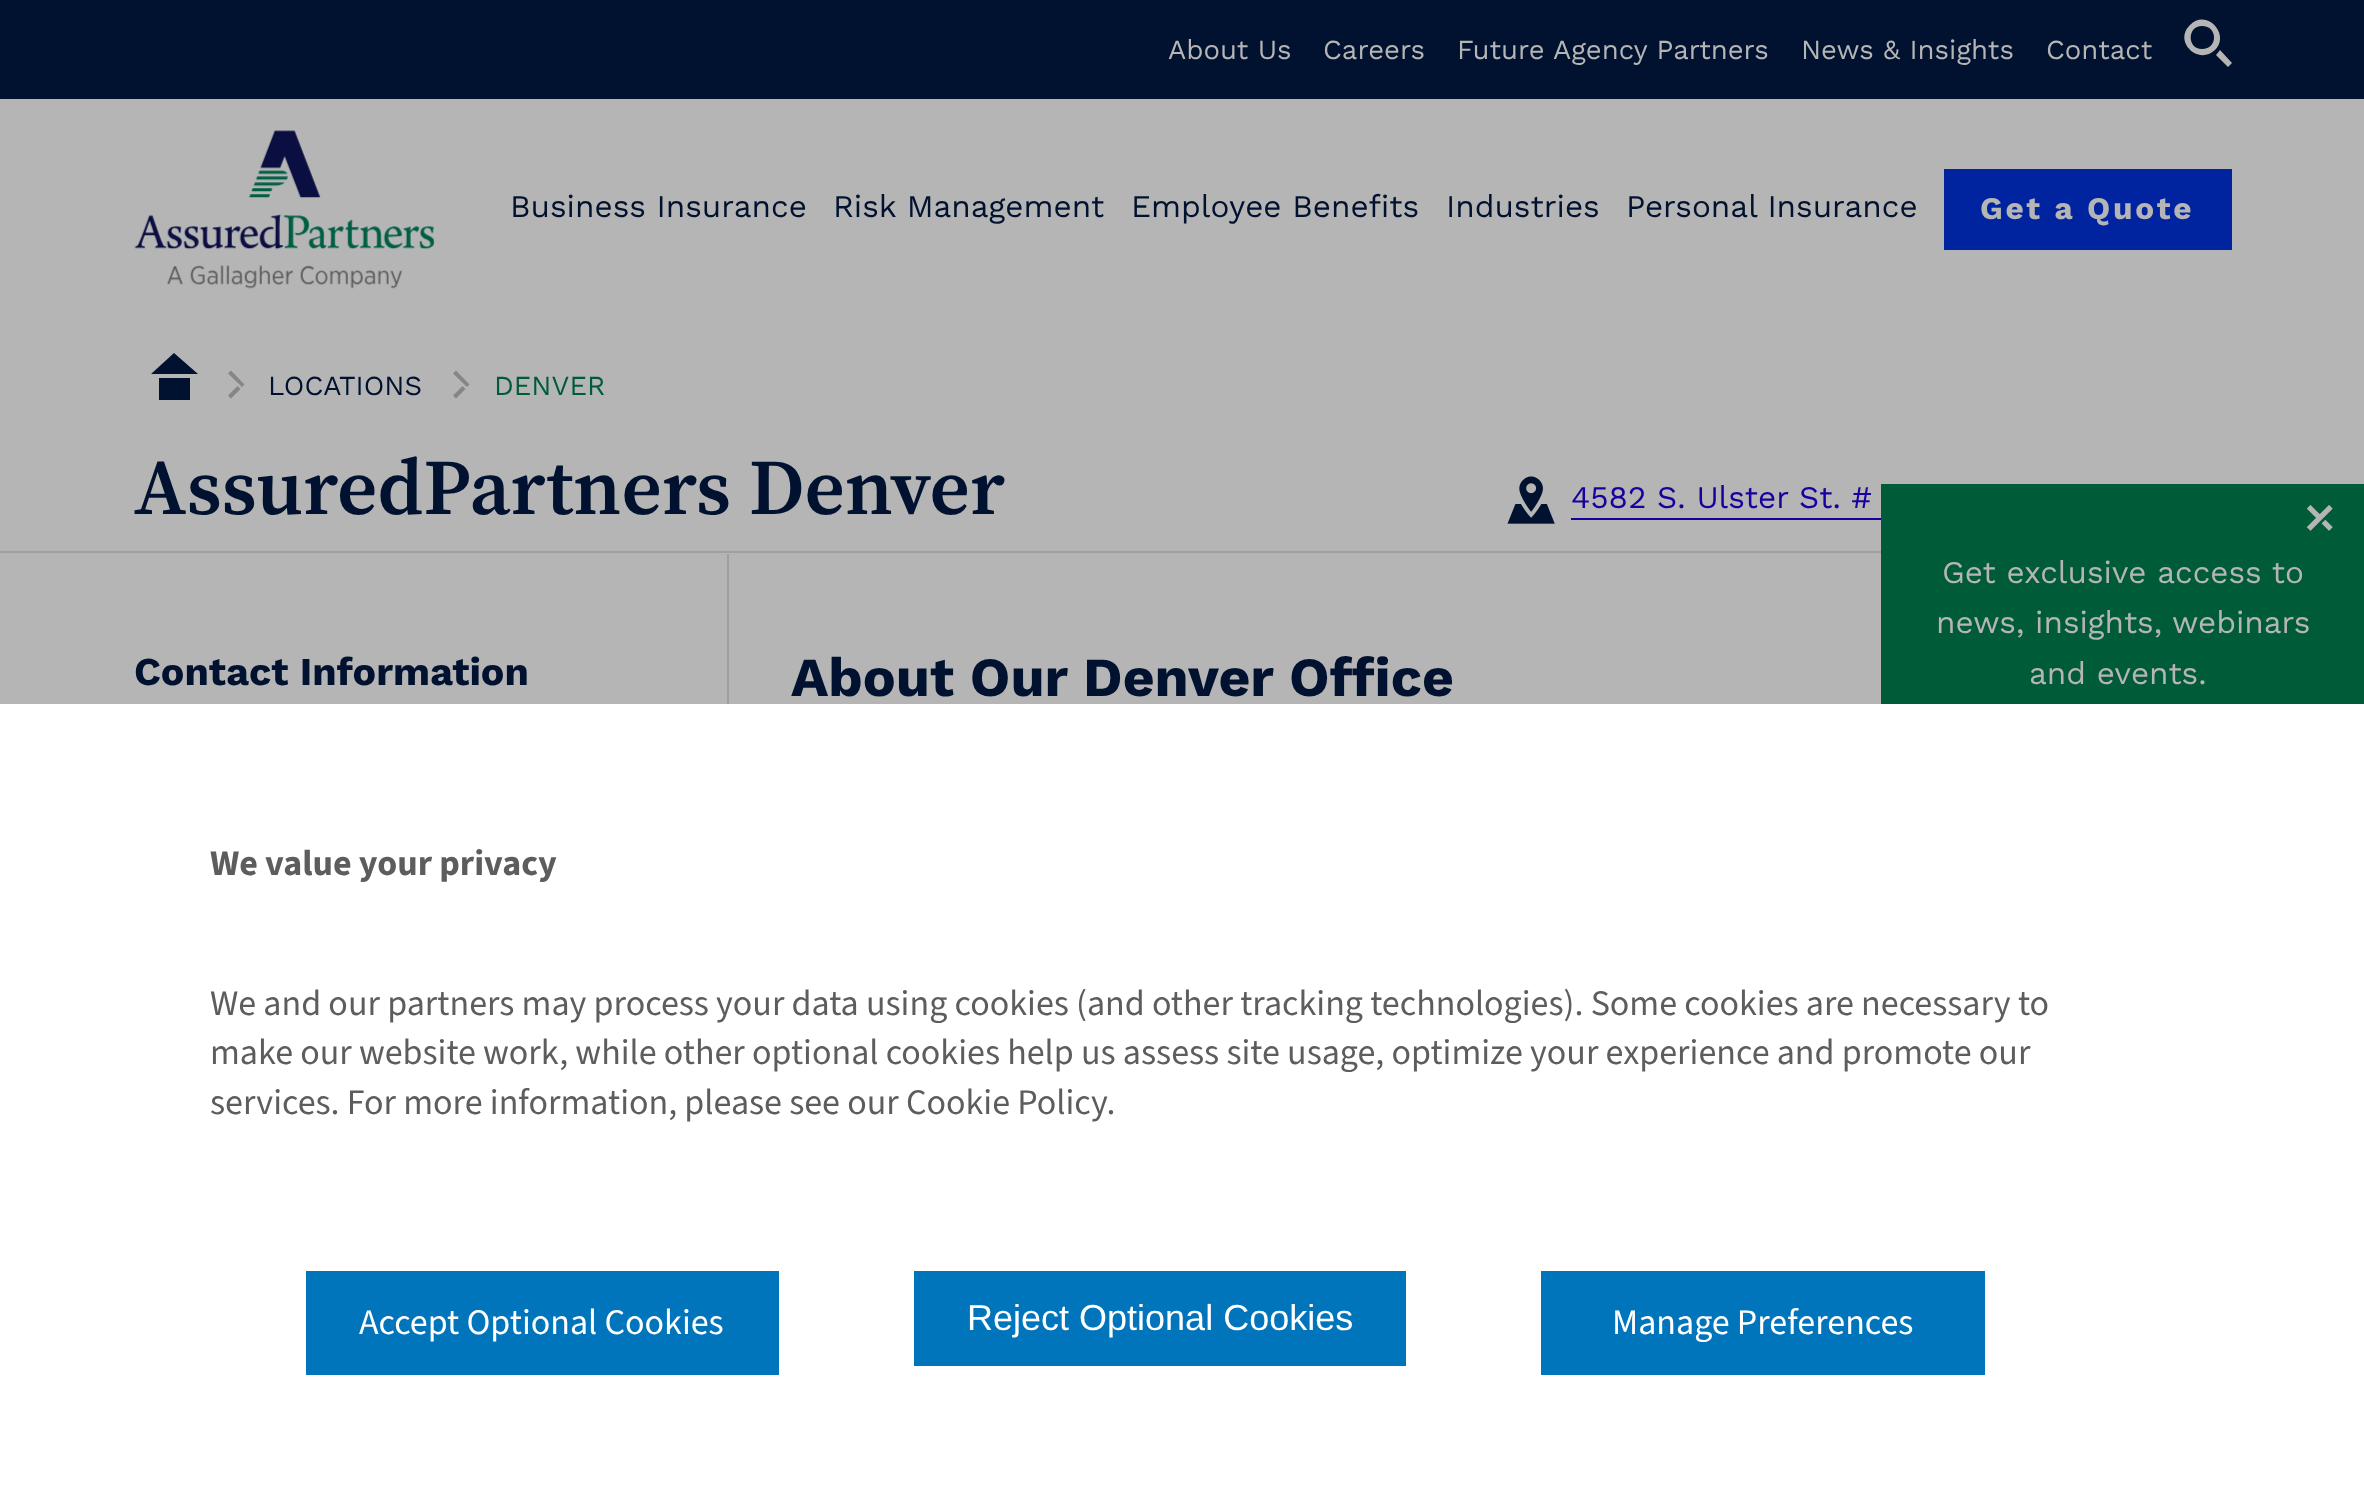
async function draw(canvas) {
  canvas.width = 2364
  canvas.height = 1491
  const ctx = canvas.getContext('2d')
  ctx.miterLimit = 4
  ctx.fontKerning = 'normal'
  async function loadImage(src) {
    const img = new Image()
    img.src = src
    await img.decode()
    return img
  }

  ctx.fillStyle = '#b5b5b5'
  ctx.fillRect(0, 0, 2364, 1491)
  ctx.fillStyle = '#00122f'
  ctx.fillRect(0, 0, 2364, 99)
  ctx.font = '27.5px Work Sans'
  ctx.fillStyle = '#b5b5b5'
  ctx.fillText('About Us', 1168, 59)
  ctx.fillText('Careers', 1323, 59)
  ctx.fillText('Future Agency Partners', 1457, 59)
  ctx.fillText('News & Insights', 1801, 59)
  ctx.fillText('Contact', 2046, 59)
  ctx.beginPath()
  ctx.moveTo(2190, 25)
  ctx.bezierCurveTo(2173, 41, 2198, 66, 2215, 50)
  ctx.bezierCurveTo(2231, 34, 2206, 8, 2190, 25)
  ctx.closePath()
  ctx.moveTo(2202, 49)
  ctx.bezierCurveTo(2187, 49, 2187, 26, 2202, 26)
  ctx.bezierCurveTo(2218, 26, 2218, 49, 2202, 49)
  ctx.closePath()
  ctx.moveTo(2228, 67)
  ctx.lineTo(2216, 55)
  ctx.lineTo(2220, 50)
  ctx.lineTo(2232, 63)
  ctx.closePath()
  ctx.fill()
  ctx.drawImage(await loadImage('image0.png'), 134, 130, 301, 159)
  ctx.font = '31.5px Work Sans'
  ctx.fillStyle = '#00122f'
  ctx.fillText('Business Insurance', 510, 217)
  ctx.fillText('Risk Management', 833, 217)
  ctx.fillText('Employee Benefits', 1131, 217)
  ctx.fillText('Industries', 1446, 217)
  ctx.fillText('Personal Insurance', 1626, 217)
  ctx.fillStyle = '#00239f'
  ctx.fillRect(1944, 169, 288, 81)
  ctx.letterSpacing = '2.75px'
  ctx.font = 'bold 31.5px Work Sans'
  ctx.fillStyle = '#b5b5b5'
  ctx.fillText('Get a Quote', 1980, 219)
  ctx.fillStyle = '#00122f'
  ctx.beginPath()
  ctx.moveTo(190, 400)
  ctx.lineTo(159, 400)
  ctx.lineTo(159, 378)
  ctx.lineTo(190, 378)
  ctx.closePath()
  ctx.moveTo(174, 353)
  ctx.lineTo(151, 374)
  ctx.lineTo(198, 374)
  ctx.closePath()
  ctx.fill()
  ctx.letterSpacing = '0px'
  ctx.font = '27.5px Work Sans'
  ctx.fillText('LOCATIONS', 268, 395)
  ctx.fillStyle = '#868686'
  ctx.beginPath()
  ctx.moveTo(242, 387)
  ctx.lineTo(228, 373.5)
  ctx.lineTo(231, 370.5)
  ctx.lineTo(244.5, 384.5)
  ctx.closePath()
  ctx.moveTo(231, 398.5)
  ctx.lineTo(240.5, 389)
  ctx.lineTo(237.5, 386)
  ctx.lineTo(228, 395.5)
  ctx.closePath()
  ctx.fill()
  ctx.fillStyle = '#005b38'
  ctx.fillText('DENVER', 494, 395)
  ctx.fillStyle = '#868686'
  ctx.beginPath()
  ctx.moveTo(467, 387)
  ctx.lineTo(453, 373.5)
  ctx.lineTo(456, 370.5)
  ctx.lineTo(469.5, 384.5)
  ctx.closePath()
  ctx.moveTo(456, 398.5)
  ctx.lineTo(465.5, 389)
  ctx.lineTo(462.5, 386)
  ctx.lineTo(453, 395.5)
  ctx.closePath()
  ctx.fill()
  ctx.fillStyle = '#005b38'
  ctx.fillRect(1881, 484, 483, 220)
  ctx.drawImage(await loadImage('image1.png'), 2306, 505, 27, 26)
  ctx.font = '31.5px Work Sans'
  ctx.fillStyle = '#b5b5b5'
  ctx.fillText('Get exclusive access to', 1942, 583)
  ctx.fillText('news, insights, webinars', 1936, 633)
  ctx.fillText('and events.', 2029, 684)
  ctx.font = '600 78.75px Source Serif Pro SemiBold'
  ctx.fillStyle = '#00122f'
  ctx.fillText('AssuredPartners Denver', 134, 514)
  ctx.drawImage(await loadImage('image2.png'), 1507, 476, 48, 48)
  ctx.font = '31.5px Work Sans'
  ctx.fillStyle = '#17009f'
  ctx.fillText('4582 S. Ulster St. #', 1571, 508)
  ctx.fillRect(1571, 518, 310, 2)
  ctx.fillStyle = '#9f9f9f'
  ctx.fillRect(0, 551, 1881, 2)
  ctx.fillRect(727, 554, 2, 150)
  ctx.font = 'bold 39.4px Work Sans'
  ctx.fillStyle = '#00122f'
  ctx.fillText('Contact Information', 134, 685)
  ctx.font = 'bold 55.1px Work Sans'
  ctx.fillText('About Our Denver Office', 791, 696)
  ctx.fillStyle = '#fff'
  ctx.fillRect(0, 704, 2364, 787)
  ctx.font = 'bold 36px "Source Sans 3"'
  ctx.fillStyle = '#5d5d5d'
  ctx.fillText('We value your privacy', 210, 875)
  ctx.font = '36px "Source Sans 3"'
  ctx.fillText('We and our partners may process your data using cookies (and other tracking technologies). Some cookies are necessary to', 210, 1015)
  ctx.fillText('make our website work, while other optional cookies help us assess site usage, optimize your experience and promote our', 210, 1064)
  ctx.fillText('services. For more information, please see our Cookie Policy.', 210, 1114)
  ctx.fillStyle = '#0075bc'
  ctx.fillRect(306, 1271, 473, 104)
  ctx.fillStyle = '#fff'
  ctx.fillText('Accept Optional Cookies', 359, 1334)
  ctx.fillStyle = '#0075bc'
  ctx.fillRect(914, 1271, 492, 95)
  ctx.font = '36px Liberation Sans'
  ctx.fillStyle = '#fff'
  ctx.fillText('Reject Optional Cookies', 967, 1330)
  ctx.fillStyle = '#0075bc'
  ctx.fillRect(1541, 1271, 444, 104)
  ctx.font = '36px "Source Sans 3"'
  ctx.fillStyle = '#fff'
  ctx.fillText('Manage Preferences', 1612, 1334)
}

draw(document.querySelector('canvas'))
